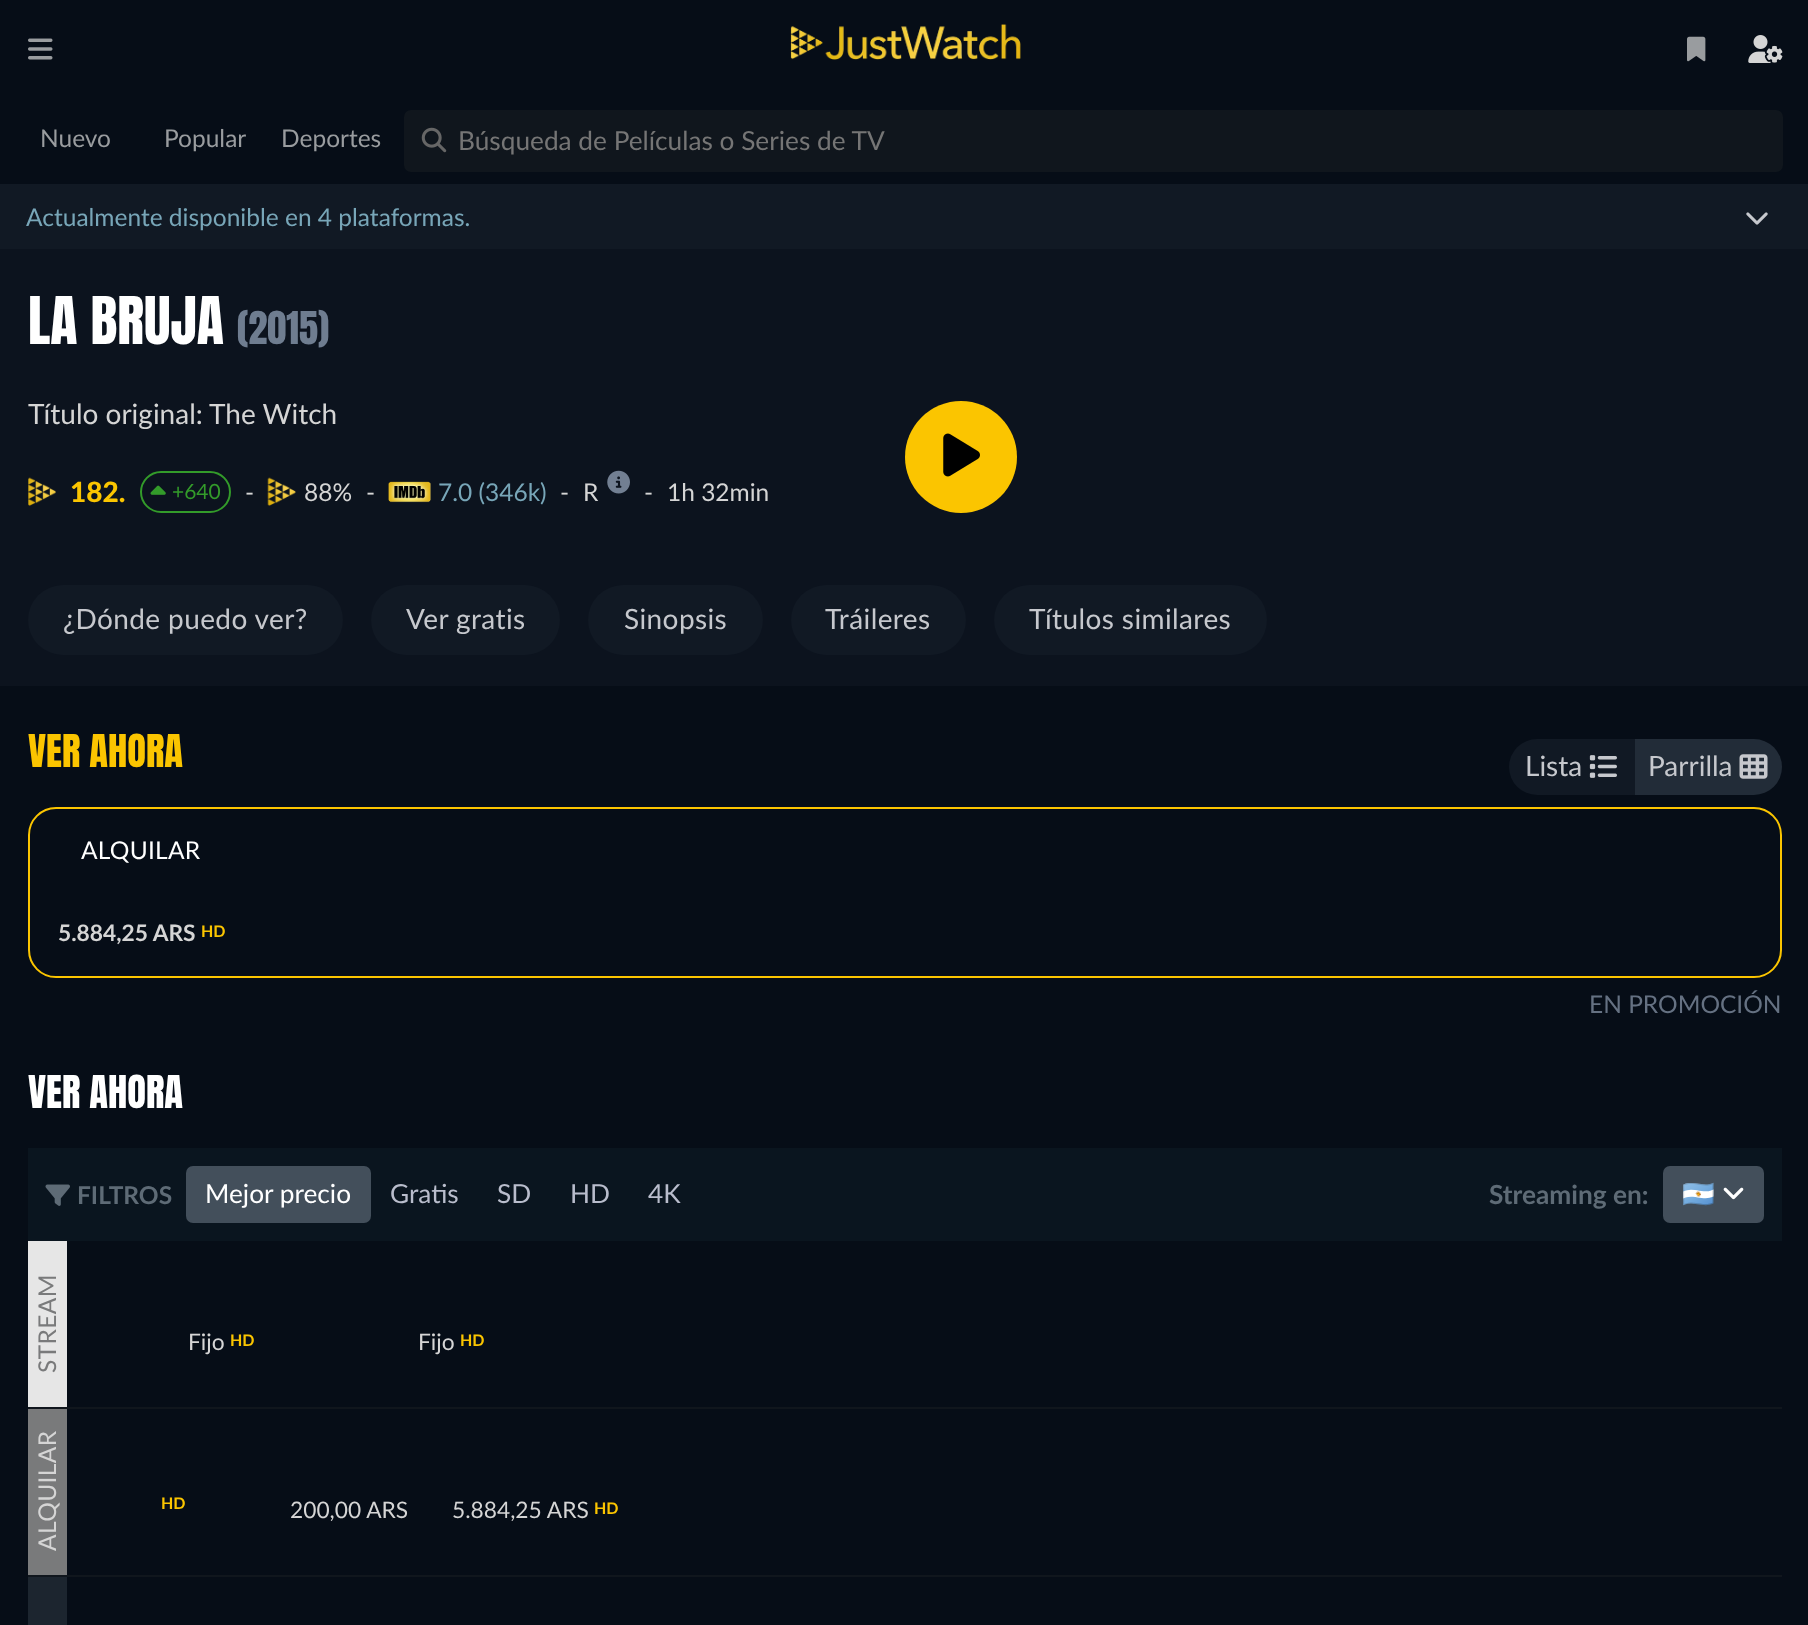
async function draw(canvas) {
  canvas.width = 1808
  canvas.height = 1625
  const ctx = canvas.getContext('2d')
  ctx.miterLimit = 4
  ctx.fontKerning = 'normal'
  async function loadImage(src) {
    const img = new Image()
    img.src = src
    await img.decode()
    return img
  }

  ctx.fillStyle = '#060d17'
  ctx.fillRect(0, 0, 1808, 1625)
  ctx.drawImage(await loadImage('image0.png'), 790, 24, 231, 36)
  ctx.drawImage(await loadImage('image1.png'), 28, 38, 25, 22)
  ctx.drawImage(await loadImage('image2.png'), 1748, 35, 35, 28)
  ctx.drawImage(await loadImage('image3.png'), 1687, 36, 19, 26)
  ctx.font = '24.5px Lato'
  ctx.fillStyle = '#999c9f'
  ctx.fillText('Nuevo', 40, 147)
  ctx.fillText('Popular', 164, 147)
  ctx.fillText('Deportes', 281, 147)
  ctx.fillStyle = '#10161d'
  ctx.beginPath()
  ctx.roundRect(404, 110, 1379, 62, 7)
  ctx.fill()
  ctx.drawImage(await loadImage('image4.png'), 421, 127, 26, 26)
  ctx.font = '26.25px Lato'
  ctx.fillStyle = '#757575'
  ctx.fillText('Búsqueda de Películas o Series de TV', 458, 150)
  ctx.fillStyle = '#111924'
  ctx.fillRect(0, 184, 1808, 65)
  ctx.font = '24.5px Lato'
  ctx.fillStyle = '#78a6b8'
  ctx.fillText('Actualmente disponible en 4 plataformas.', 26, 226)
  ctx.drawImage(await loadImage('image5.png'), 1746, 212, 22, 13)
  ctx.fillStyle = '#0c131e'
  ctx.fillRect(0, 249, 1808, 437)
  ctx.font = '56px Anton'
  ctx.fillStyle = '#fff'
  ctx.fillText('LA BRUJA', 28, 344)
  ctx.font = '38.5px Anton'
  ctx.fillStyle = '#6f7d90'
  ctx.fillText('(2015)', 237, 344)
  ctx.font = '28px Lato'
  ctx.fillStyle = '#d5d5d5'
  ctx.fillText('Título original: The Witch', 28, 424)
  ctx.drawImage(await loadImage('image6.png'), 28, 477, 28, 29)
  ctx.font = '900 28px Lato'
  ctx.fillStyle = '#fbc500'
  ctx.fillText('182.', 70, 502)
  ctx.beginPath()
  ctx.roundRect(141, 472, 89, 40, 20)
  ctx.strokeStyle = '#339b2a'
  ctx.lineWidth = 2
  ctx.stroke()
  ctx.drawImage(await loadImage('image7.png'), 150, 485, 16, 10)
  ctx.font = '21px Lato'
  ctx.fillStyle = '#339b2a'
  ctx.fillText('+640', 172, 499)
  ctx.font = '24.5px Lato'
  ctx.fillStyle = '#d5d5d5'
  ctx.fillText('-', 245, 501)
  ctx.drawImage(await loadImage('image8.png'), 267, 477, 29, 29)
  ctx.fillText('88%', 304, 501)
  ctx.fillText('-', 366, 501)
  ctx.drawImage(await loadImage('image9.png'), 388, 481, 43, 22)
  ctx.fillStyle = '#78a6b8'
  ctx.fillText('7.0 (346k)', 438, 501)
  ctx.fillStyle = '#d5d5d5'
  ctx.fillText('-', 560, 501)
  ctx.fillText('R', 583, 501)
  ctx.drawImage(await loadImage('image10.png'), 607, 470, 23, 24)
  ctx.fillText('-', 644, 501)
  ctx.fillText('1h 32min', 667, 501)
  ctx.fillStyle = '#111924'
  ctx.beginPath()
  ctx.roundRect(28, 585, 315, 70, 35)
  ctx.fill()
  ctx.letterSpacing = '0.4px'
  ctx.font = '28px Lato'
  ctx.fillStyle = '#c6c8cd'
  ctx.fillText('¿Dónde puedo ver?', 63, 629)
  ctx.fillStyle = '#111924'
  ctx.beginPath()
  ctx.roundRect(371, 585, 189, 70, 35)
  ctx.fill()
  ctx.fillStyle = '#c6c8cd'
  ctx.fillText('Ver gratis', 406, 629)
  ctx.fillStyle = '#111924'
  ctx.beginPath()
  ctx.roundRect(588, 585, 175, 70, 35)
  ctx.fill()
  ctx.fillStyle = '#c6c8cd'
  ctx.fillText('Sinopsis', 624, 629)
  ctx.fillStyle = '#111924'
  ctx.beginPath()
  ctx.roundRect(791, 585, 175, 70, 35)
  ctx.fill()
  ctx.fillStyle = '#c6c8cd'
  ctx.fillText('Tráileres', 825, 629)
  ctx.fillStyle = '#111924'
  ctx.beginPath()
  ctx.roundRect(994, 585, 273, 70, 35)
  ctx.fill()
  ctx.fillStyle = '#c6c8cd'
  ctx.fillText('Títulos similares', 1029, 629)
  ctx.fillStyle = '#fbc500'
  ctx.beginPath()
  ctx.arc(961, 457, 56, 0, 2 * Math.PI)
  ctx.fill()
  ctx.drawImage(await loadImage('image11.png'), 943, 433, 37, 44)
  ctx.letterSpacing = '0px'
  ctx.font = '38.5px Anton'
  ctx.fillText('VER AHORA', 28, 767)
  ctx.beginPath()
  ctx.roundRect(29, 808, 1752, 169, 27)
  ctx.strokeStyle = '#fbc500'
  ctx.stroke()
  ctx.letterSpacing = '0.25px'
  ctx.font = '24.5px Lato'
  ctx.fillStyle = '#fff'
  ctx.fillText('ALQUILAR', 81, 859)
  ctx.letterSpacing = '0px'
  ctx.font = 'bold 22.75px Lato'
  ctx.fillStyle = '#d5d5d5'
  ctx.fillText('5.884,25 ARS', 58, 941)
  ctx.font = 'bold 16px Lato'
  ctx.fillStyle = '#fbc500'
  ctx.fillText('HD', 201, 937)
  ctx.font = '24.5px Lato'
  ctx.fillStyle = '#657182'
  ctx.fillText('EN PROMOCIÓN', 1589, 1013)
  ctx.fillStyle = '#111924'
  ctx.beginPath()
  ctx.roundRect(1509, 739, 126, 56, [28, 0, 0, 28])
  ctx.fill()
  ctx.font = '28px Lato'
  ctx.fillStyle = '#c6c8cd'
  ctx.fillText('Lista', 1525, 776)
  ctx.drawImage(await loadImage('image12.png'), 1589, 755, 28, 23)
  ctx.fillStyle = '#222c38'
  ctx.beginPath()
  ctx.roundRect(1635, 739, 147, 56, [0, 28, 28, 0])
  ctx.fill()
  ctx.fillStyle = '#c6c8cd'
  ctx.fillText('Parrilla', 1648, 776)
  ctx.drawImage(await loadImage('image13.png'), 1739, 754, 29, 25)
  ctx.font = '38.5px Anton'
  ctx.fillStyle = '#fff'
  ctx.fillText('VER AHORA', 28, 1108)
  ctx.fillStyle = '#0a151f'
  ctx.fillRect(28, 1148, 1754, 93)
  ctx.drawImage(await loadImage('image14.png'), 45, 1184, 25, 22)
  ctx.font = 'bold 24.5px Lato'
  ctx.fillStyle = '#5e6b76'
  ctx.fillText('FILTROS', 77, 1204)
  ctx.fillStyle = '#434f5b'
  ctx.beginPath()
  ctx.roundRect(186, 1166, 185, 57, 7)
  ctx.fill()
  ctx.font = '26.25px Lato'
  ctx.fillStyle = '#fff'
  ctx.fillText('Mejor precio', 205, 1203)
  ctx.fillStyle = '#b9bdcc'
  ctx.fillText('Gratis', 390, 1203)
  ctx.fillText('SD', 497, 1203)
  ctx.fillText('HD', 570, 1203)
  ctx.fillText('4K', 648, 1203)
  ctx.font = 'bold 26.25px Lato'
  ctx.fillStyle = '#5e6b76'
  ctx.fillText('Streaming en:', 1489, 1204)
  ctx.fillStyle = '#434f5b'
  ctx.beginPath()
  ctx.roundRect(1663, 1166, 101, 57, 7)
  ctx.fill()
  ctx.font = '26.25px Noto Color Emoji'
  ctx.fillStyle = '#fff'
  ctx.fillText('🇦🇷', 1682, 1203)
  ctx.drawImage(await loadImage('image15.png'), 1723, 1187, 21, 13)
  ctx.fillStyle = '#10161d'
  ctx.fillRect(28, 1407, 1754, 2)
  ctx.fillStyle = '#e6e6e6'
  ctx.fillRect(28, 1241, 39, 166)
  ctx.letterSpacing = '0.4px'
  ctx.font = '24.5px Lato'
  ctx.fillStyle = '#797a7b'
  ctx.save()
  ctx.translate(56, 1373)
  ctx.rotate(-90 * Math.PI / 180)
  ctx.fillText('STREAM', 0, 0)
  ctx.restore()
  ctx.letterSpacing = '0px'
  ctx.font = '22.75px Lato'
  ctx.fillStyle = '#d5d5d5'
  ctx.fillText('Fijo', 188, 1350)
  ctx.font = 'bold 16px Lato'
  ctx.fillStyle = '#fbc500'
  ctx.fillText('HD', 230, 1346)
  ctx.font = '22.75px Lato'
  ctx.fillStyle = '#d5d5d5'
  ctx.fillText('Fijo', 418, 1350)
  ctx.font = 'bold 16px Lato'
  ctx.fillStyle = '#fbc500'
  ctx.fillText('HD', 460, 1346)
  ctx.fillStyle = '#10161d'
  ctx.fillRect(28, 1575, 1754, 2)
  ctx.fillStyle = '#797a7b'
  ctx.fillRect(28, 1409, 39, 166)
  ctx.letterSpacing = '0.4px'
  ctx.font = '24.5px Lato'
  ctx.fillStyle = '#d5d5d5'
  ctx.save()
  ctx.translate(56, 1551)
  ctx.rotate(-90 * Math.PI / 180)
  ctx.fillText('ALQUILAR', 0, 0)
  ctx.restore()
  ctx.letterSpacing = '0px'
  ctx.font = 'bold 16px Lato'
  ctx.fillStyle = '#fbc500'
  ctx.fillText('HD', 161, 1509)
  ctx.font = '22.75px Lato'
  ctx.fillStyle = '#d5d5d5'
  ctx.fillText('200,00 ARS', 290, 1518)
  ctx.fillText('5.884,25 ARS', 452, 1518)
  ctx.font = 'bold 16px Lato'
  ctx.fillStyle = '#fbc500'
  ctx.fillText('HD', 594, 1514)
  ctx.fillStyle = '#1c252f'
  ctx.fillRect(28, 1577, 39, 48)
}

draw(document.querySelector('canvas'))
